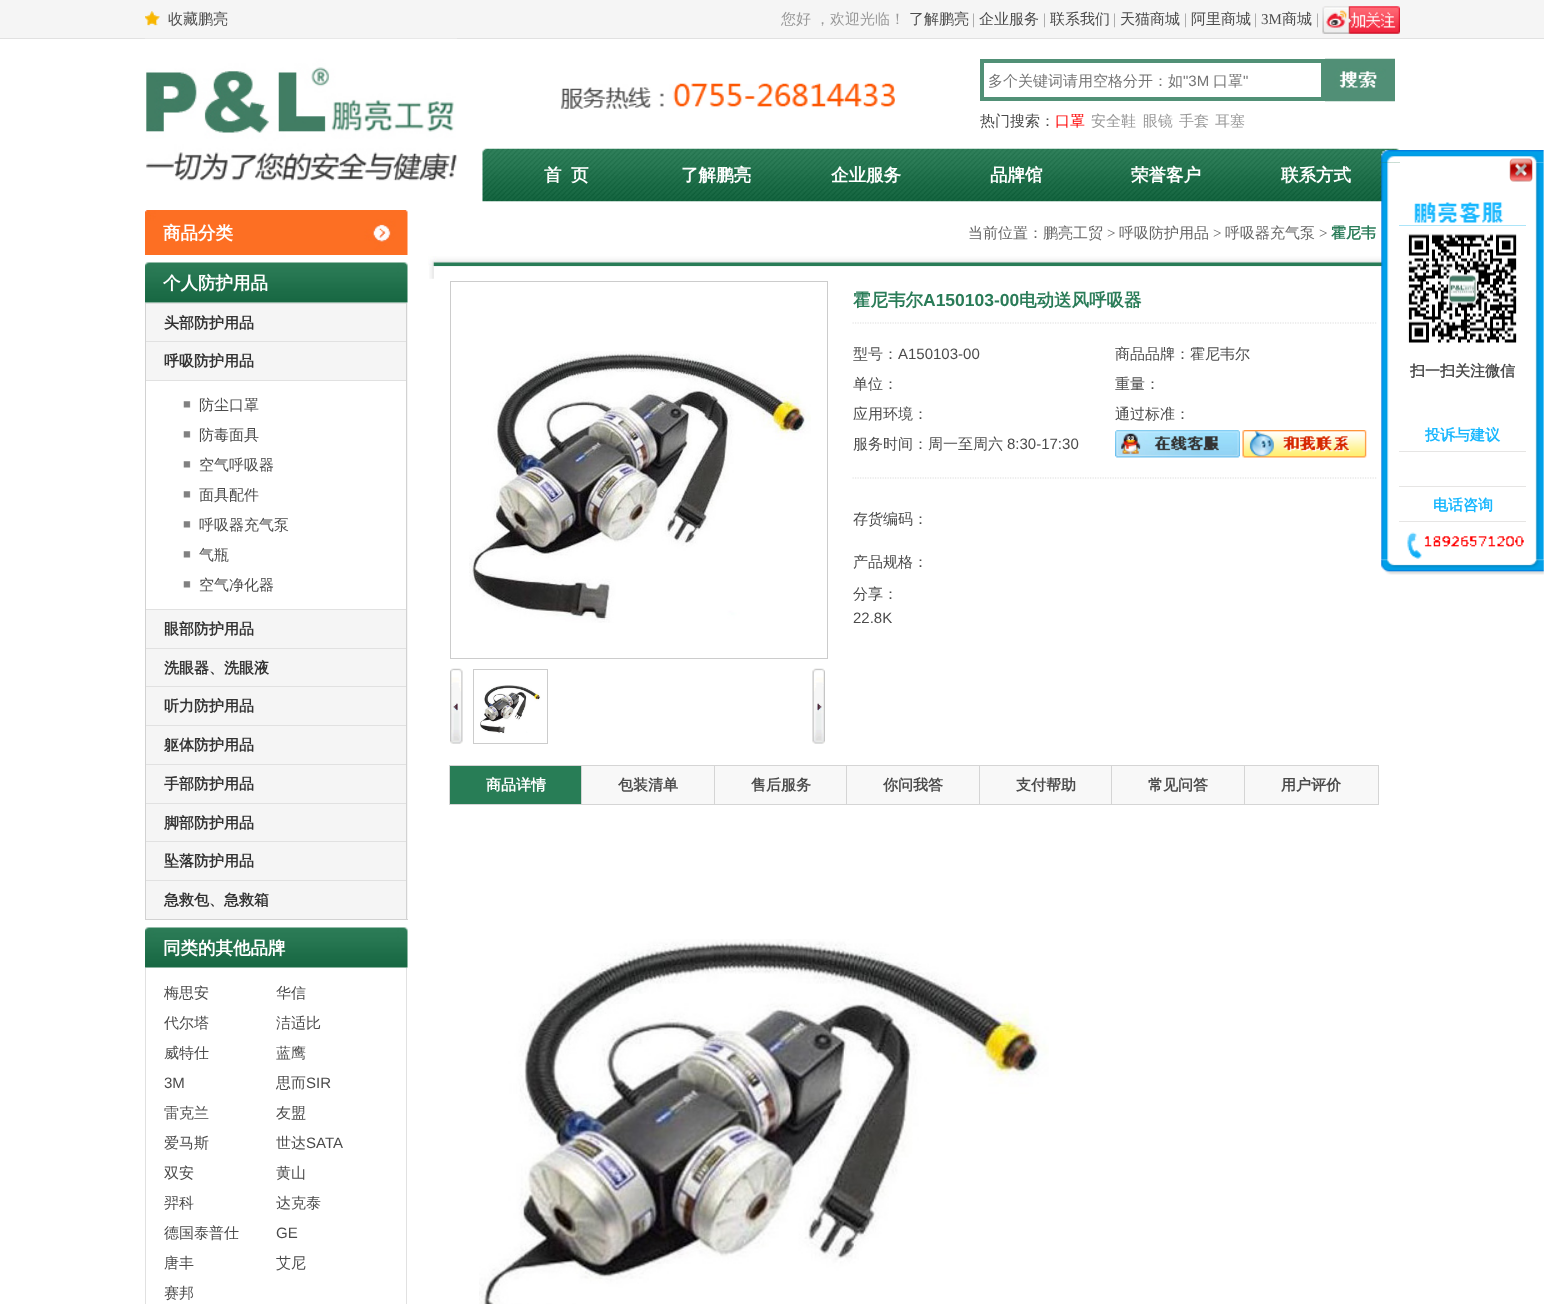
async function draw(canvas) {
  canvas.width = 1544
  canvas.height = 1304
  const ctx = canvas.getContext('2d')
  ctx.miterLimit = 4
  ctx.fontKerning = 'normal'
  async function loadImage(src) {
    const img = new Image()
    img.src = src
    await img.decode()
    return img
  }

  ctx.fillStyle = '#fff'
  ctx.fillRect(0, 0, 1544, 1304)
  ctx.fillStyle = '#f5f5f5'
  ctx.fillRect(0, 0, 1544, 38)
  ctx.fillStyle = '#e1e1e1'
  ctx.fillRect(0, 38, 1544, 1)
  ctx.drawImage(await loadImage('image0.png'), 145, 11, 15, 15)
  ctx.font = '500 15px WenQuanYi Zen Hei'
  ctx.fillStyle = '#4b4b4b'
  ctx.fillText('收藏鹏亮', 168, 24)
  ctx.fillStyle = '#999'
  ctx.fillText('您好', 781, 24)
  ctx.fillText('，欢迎光临！', 815, 24)
  ctx.fillStyle = '#4b4b4b'
  ctx.fillText('了解鹏亮', 909, 24)
  ctx.font = '15px Liberation Serif'
  ctx.fillStyle = '#999'
  ctx.fillText('|', 972, 24)
  ctx.font = '500 15px WenQuanYi Zen Hei'
  ctx.fillStyle = '#4b4b4b'
  ctx.fillText('企业服务', 979, 24)
  ctx.font = '15px Liberation Serif'
  ctx.fillStyle = '#999'
  ctx.fillText('|', 1043, 24)
  ctx.font = '500 15px WenQuanYi Zen Hei'
  ctx.fillStyle = '#4b4b4b'
  ctx.fillText('联系我们', 1050, 24)
  ctx.font = '15px Liberation Serif'
  ctx.fillStyle = '#999'
  ctx.fillText('|', 1113, 24)
  ctx.font = '500 15px WenQuanYi Zen Hei'
  ctx.fillStyle = '#4b4b4b'
  ctx.fillText('天猫商城', 1120, 24)
  ctx.font = '15px Liberation Serif'
  ctx.fillStyle = '#999'
  ctx.fillText('|', 1184, 24)
  ctx.font = '500 15px WenQuanYi Zen Hei'
  ctx.fillStyle = '#4b4b4b'
  ctx.fillText('阿里商城', 1191, 24)
  ctx.font = '15px Liberation Serif'
  ctx.fillStyle = '#999'
  ctx.fillText('|', 1254, 24)
  ctx.fillStyle = '#4b4b4b'
  ctx.fillText('3M', 1261, 24)
  ctx.font = '500 15px WenQuanYi Zen Hei'
  ctx.fillText('商城', 1282, 24)
  ctx.font = '15px Liberation Serif'
  ctx.fillStyle = '#999'
  ctx.fillText('|', 1316, 24)
  ctx.drawImage(await loadImage('image1.png'), 1322, 6, 78, 28)
  ctx.drawImage(await loadImage('image2.png'), 145, 38, 312, 143)
  ctx.drawImage(await loadImage('image3.png'), 560, 83, 335, 26)
  ctx.strokeStyle = '#519076'
  ctx.lineWidth = 4
  ctx.strokeRect(982, 61, 341, 38)
  ctx.font = '500 15px WenQuanYi Zen Hei'
  ctx.fillStyle = '#757575'
  ctx.fillText('多个关键词请用空格分开：如', 988, 86)
  ctx.font = '15px Liberation Sans'
  ctx.fillText('"3M', 1183, 86)
  ctx.font = '500 15px WenQuanYi Zen Hei'
  ctx.fillText('口罩', 1213, 86)
  ctx.font = '15px Liberation Sans'
  ctx.fillText('"', 1243, 86)
  ctx.drawImage(await loadImage('image4.png'), 1325, 58, 70, 44)
  ctx.font = '500 15px WenQuanYi Zen Hei'
  ctx.fillStyle = '#4b4b4b'
  ctx.fillText('热门搜索：', 980, 126)
  ctx.fillStyle = '#f00'
  ctx.fillText('口罩', 1055, 126)
  ctx.fillStyle = '#999'
  ctx.fillText('安全鞋', 1091, 126)
  ctx.fillText('眼镜', 1143, 126)
  ctx.fillText('手套', 1179, 126)
  ctx.fillText('耳塞', 1215, 126)
  ctx.drawImage(await loadImage('image5.png'), 482, 148, 918, 54)
  ctx.font = 'bold 17.5px WenQuanYi Zen Hei'
  ctx.fillStyle = '#fff'
  ctx.fillText('首', 544, 181)
  ctx.fillText('页', 571, 181)
  ctx.fillText('了解鹏亮', 681, 181)
  ctx.fillText('企业服务', 831, 181)
  ctx.fillText('品牌馆', 990, 181)
  ctx.fillText('荣誉客户', 1131, 181)
  ctx.fillText('联系方式', 1281, 181)
  ctx.drawImage(await loadImage('image6.png'), 145, 210, 263, 45)
  ctx.fillText('商品分类', 163, 239)
  ctx.drawImage(await loadImage('image7.png'), 145, 262, 263, 41)
  ctx.fillText('个人防护用品', 163, 289)
  ctx.fillStyle = '#f5f5f5'
  ctx.fillRect(146, 303, 262, 616)
  ctx.fillStyle = '#d2d2d2'
  ctx.fillRect(406, 303, 1, 617)
  ctx.fillRect(145, 919, 263, 1)
  ctx.fillRect(145, 303, 1, 617)
  ctx.fillStyle = '#e1e1e1'
  ctx.fillRect(146, 303, 260, 1)
  ctx.font = 'bold 15px WenQuanYi Zen Hei'
  ctx.fillStyle = '#333'
  ctx.fillText('头部防护用品', 164, 328)
  ctx.fillStyle = '#e1e1e1'
  ctx.fillRect(146, 341, 260, 1)
  ctx.fillStyle = '#333'
  ctx.fillText('呼吸防护用品', 164, 366)
  ctx.fillStyle = '#fff'
  ctx.fillRect(146, 381, 260, 228)
  ctx.fillStyle = '#e1e1e1'
  ctx.fillRect(146, 380, 260, 1)
  ctx.drawImage(await loadImage('image8.png'), 183, 401, 8, 7)
  ctx.font = '500 15px WenQuanYi Zen Hei'
  ctx.fillStyle = '#4b4b4b'
  ctx.fillText('防尘口罩', 199, 410)
  ctx.drawImage(await loadImage('image8.png'), 183, 431, 8, 7)
  ctx.fillText('防毒面具', 199, 440)
  ctx.drawImage(await loadImage('image8.png'), 183, 461, 8, 7)
  ctx.fillText('空气呼吸器', 199, 470)
  ctx.drawImage(await loadImage('image8.png'), 183, 491, 8, 7)
  ctx.fillText('面具配件', 199, 500)
  ctx.drawImage(await loadImage('image8.png'), 183, 521, 8, 7)
  ctx.fillText('呼吸器充气泵', 199, 530)
  ctx.drawImage(await loadImage('image8.png'), 183, 551, 8, 7)
  ctx.fillText('气瓶', 199, 560)
  ctx.drawImage(await loadImage('image8.png'), 183, 581, 8, 7)
  ctx.fillText('空气净化器', 199, 590)
  ctx.fillStyle = '#e1e1e1'
  ctx.fillRect(146, 609, 260, 1)
  ctx.font = 'bold 15px WenQuanYi Zen Hei'
  ctx.fillStyle = '#333'
  ctx.fillText('眼部防护用品', 164, 634)
  ctx.fillStyle = '#e1e1e1'
  ctx.fillRect(146, 648, 260, 1)
  ctx.fillStyle = '#333'
  ctx.fillText('洗眼器、洗眼液', 164, 673)
  ctx.fillStyle = '#e1e1e1'
  ctx.fillRect(146, 686, 260, 1)
  ctx.fillStyle = '#333'
  ctx.fillText('听力防护用品', 164, 711)
  ctx.fillStyle = '#e1e1e1'
  ctx.fillRect(146, 725, 260, 1)
  ctx.fillStyle = '#333'
  ctx.fillText('躯体防护用品', 164, 750)
  ctx.fillStyle = '#e1e1e1'
  ctx.fillRect(146, 764, 260, 1)
  ctx.fillStyle = '#333'
  ctx.fillText('手部防护用品', 164, 789)
  ctx.fillStyle = '#e1e1e1'
  ctx.fillRect(146, 803, 260, 1)
  ctx.fillStyle = '#333'
  ctx.fillText('脚部防护用品', 164, 828)
  ctx.fillStyle = '#e1e1e1'
  ctx.fillRect(146, 841, 260, 1)
  ctx.fillStyle = '#333'
  ctx.fillText('坠落防护用品', 164, 866)
  ctx.fillStyle = '#e1e1e1'
  ctx.fillRect(146, 880, 260, 1)
  ctx.fillStyle = '#333'
  ctx.fillText('急救包、急救箱', 164, 905)
  ctx.drawImage(await loadImage('image7.png'), 145, 927, 263, 41)
  ctx.font = 'bold 17.5px WenQuanYi Zen Hei'
  ctx.fillStyle = '#fff'
  ctx.fillText('同类的其他品牌', 163, 954)
  ctx.fillStyle = '#e1e1e1'
  ctx.fillRect(406, 968, 1, 336)
  ctx.fillRect(145, 968, 1, 336)
  ctx.font = '500 15px WenQuanYi Zen Hei'
  ctx.fillStyle = '#4b4b4b'
  ctx.fillText('梅思安', 164, 998)
  ctx.fillText('华信', 276, 998)
  ctx.fillText('代尔塔', 164, 1028)
  ctx.fillText('洁适比', 276, 1028)
  ctx.fillText('威特仕', 164, 1058)
  ctx.fillText('蓝鹰', 276, 1058)
  ctx.font = '15px Liberation Sans'
  ctx.fillText('3M', 164, 1088)
  ctx.font = '500 15px WenQuanYi Zen Hei'
  ctx.fillText('思而', 276, 1088)
  ctx.font = '15px Liberation Sans'
  ctx.fillText('SIR', 306, 1088)
  ctx.font = '500 15px WenQuanYi Zen Hei'
  ctx.fillText('雷克兰', 164, 1118)
  ctx.fillText('友盟', 276, 1118)
  ctx.fillText('爱马斯', 164, 1148)
  ctx.fillText('世达', 276, 1148)
  ctx.font = '15px Liberation Sans'
  ctx.fillText('SATA', 306, 1148)
  ctx.font = '500 15px WenQuanYi Zen Hei'
  ctx.fillText('双安', 164, 1178)
  ctx.fillText('黄山', 276, 1178)
  ctx.fillText('羿科', 164, 1208)
  ctx.fillText('达克泰', 276, 1208)
  ctx.fillText('德国泰普仕', 164, 1238)
  ctx.font = '15px Liberation Sans'
  ctx.fillText('GE', 276, 1238)
  ctx.font = '500 15px WenQuanYi Zen Hei'
  ctx.fillText('唐丰', 164, 1268)
  ctx.fillText('艾尼', 276, 1268)
  ctx.fillText('赛邦', 164, 1298)
  ctx.fillStyle = '#666'
  ctx.fillText('当前位置：鹏亮工贸', 968, 238)
  ctx.font = '15px Liberation Serif'
  ctx.fillText('>', 1107, 238)
  ctx.font = '500 15px WenQuanYi Zen Hei'
  ctx.fillText('呼吸防护用品', 1119, 238)
  ctx.font = '15px Liberation Serif'
  ctx.fillText('>', 1213, 238)
  ctx.font = '500 15px WenQuanYi Zen Hei'
  ctx.fillText('呼吸器充气泵', 1225, 238)
  ctx.font = '15px Liberation Serif'
  ctx.fillText('>', 1319, 238)
  ctx.font = 'bold 15px WenQuanYi Zen Hei'
  ctx.fillStyle = '#2a7c58'
  ctx.fillText('霍尼韦', 1331, 238)
  ctx.drawImage(await loadImage('image9.png'), 428, 256, 955, 11)
  ctx.drawImage(await loadImage('image10.png'), 429, 266, 954, 13)
  ctx.strokeStyle = '#ccc'
  ctx.lineWidth = 1
  ctx.strokeRect(450.5, 281.5, 377, 377)
  ctx.drawImage(await loadImage('image11.png'), 469, 351, 342, 272)
  ctx.drawImage(await loadImage('image12.png'), 450, 668, 13, 76)
  ctx.strokeRect(473.5, 669.5, 74, 74)
  ctx.drawImage(await loadImage('image13.png'), 480, 685, 61, 49)
  ctx.drawImage(await loadImage('image14.png'), 812, 668, 13, 76)
  ctx.beginPath()
  ctx.moveTo(852.5, 323)
  ctx.lineTo(1377.5, 323)
  ctx.strokeStyle = '#ddd'
  ctx.lineWidth = 1.2
  ctx.setLineDash([1.25, 1.25])
  ctx.stroke()
  ctx.font = 'bold 17.5px WenQuanYi Zen Hei'
  ctx.fillText('霍尼韦尔', 853, 306)
  ctx.font = 'bold 17.5px Liberation Sans'
  ctx.fillText('A150103-00', 923, 306)
  ctx.font = 'bold 17.5px WenQuanYi Zen Hei'
  ctx.fillText('电动送风呼吸器', 1019, 306)
  ctx.font = '500 15px WenQuanYi Zen Hei'
  ctx.fillStyle = '#4b4b4b'
  ctx.fillText('型号：', 853, 359)
  ctx.font = '15px Liberation Sans'
  ctx.fillText('A150103-00', 898, 359)
  ctx.font = '500 15px WenQuanYi Zen Hei'
  ctx.fillText('商品品牌：霍尼韦尔', 1115, 359)
  ctx.fillText('单位：', 853, 389)
  ctx.fillText('重量：', 1115, 389)
  ctx.fillText('应用环境：', 853, 419)
  ctx.fillText('通过标准：', 1115, 419)
  ctx.fillText('服务时间：周一至周六', 853, 449)
  ctx.font = '15px Liberation Sans'
  ctx.fillText('8:30-17:30', 1007, 449)
  ctx.drawImage(await loadImage('image15.png'), 1115, 430, 125, 28)
  ctx.drawImage(await loadImage('image16.png'), 1242, 430, 125, 28)
  ctx.beginPath()
  ctx.moveTo(852.5, 478)
  ctx.lineTo(1377.5, 478)
  ctx.stroke()
  ctx.font = '500 15px WenQuanYi Zen Hei'
  ctx.fillText('存货编码：', 853, 524)
  ctx.fillText('产品规格：', 853, 567)
  ctx.fillText('分享：', 853, 599)
  ctx.font = '15px Liberation Sans'
  ctx.fillText('22.8K', 853, 623)
  ctx.fillStyle = '#f8f8f8'
  ctx.fillRect(582, 766, 796, 38)
  ctx.strokeStyle = '#d5d5d5'
  ctx.lineWidth = 1
  ctx.setLineDash([])
  ctx.strokeRect(449.5, 765.5, 929, 39)
  ctx.fillStyle = '#d5d5d5'
  ctx.fillRect(581, 766, 1, 38)
  ctx.fillStyle = '#287d56'
  ctx.fillRect(450, 766, 131, 38)
  ctx.font = 'bold 15px WenQuanYi Zen Hei'
  ctx.fillStyle = '#fff'
  ctx.fillText('商品详情', 486, 790)
  ctx.fillStyle = '#d5d5d5'
  ctx.fillRect(714, 766, 1, 38)
  ctx.fillStyle = '#4b4b4b'
  ctx.fillText('包装清单', 618, 790)
  ctx.fillStyle = '#d5d5d5'
  ctx.fillRect(846, 766, 1, 38)
  ctx.fillStyle = '#4b4b4b'
  ctx.fillText('售后服务', 751, 790)
  ctx.fillStyle = '#d5d5d5'
  ctx.fillRect(979, 766, 1, 38)
  ctx.fillStyle = '#4b4b4b'
  ctx.fillText('你问我答', 883, 790)
  ctx.fillStyle = '#d5d5d5'
  ctx.fillRect(1111, 766, 1, 38)
  ctx.fillStyle = '#4b4b4b'
  ctx.fillText('支付帮助', 1016, 790)
  ctx.fillStyle = '#d5d5d5'
  ctx.fillRect(1244, 766, 1, 38)
  ctx.fillStyle = '#4b4b4b'
  ctx.fillText('常见问答', 1148, 790)
  ctx.fillText('用户评价', 1281, 790)
  ctx.drawImage(await loadImage('image17.png'), 479, 939, 570, 365)
  ctx.drawImage(await loadImage('image18.png'), 1381, 559, 163, 16)
  ctx.drawImage(await loadImage('image19.png'), 1381, 150, 163, 13)
  ctx.drawImage(await loadImage('image21.png'), 1381, 162, 163, 399)
  ctx.drawImage(await loadImage('image20.png'), 1509, 158, 24, 24)
  ctx.fillStyle = '#ace5f9'
  ctx.fillRect(1399, 225, 127, 1)
  ctx.drawImage(await loadImage('image22.png'), 1414, 202, 90, 21)
  ctx.drawImage(await loadImage('image23.png'), 1407, 233, 110, 110)
  ctx.fillStyle = '#4b4b4b'
  ctx.fillText('扫一扫关注微信', 1410, 376)
  ctx.fillStyle = '#e6e5e4'
  ctx.fillRect(1399, 451, 127, 1)
  ctx.fillStyle = '#18b7fe'
  ctx.fillText('投诉与建议', 1425, 440)
  ctx.fillStyle = '#e6e5e4'
  ctx.fillRect(1399, 486, 127, 1)
  ctx.fillRect(1399, 521, 127, 1)
  ctx.fillStyle = '#18b7fe'
  ctx.fillText('电话咨询', 1433, 510)
  ctx.drawImage(await loadImage('image24.png'), 1407, 532, 15, 27)
  ctx.drawImage(await loadImage('image25.png'), 1424, 536, 100, 11)
}

draw(document.querySelector('canvas'))
